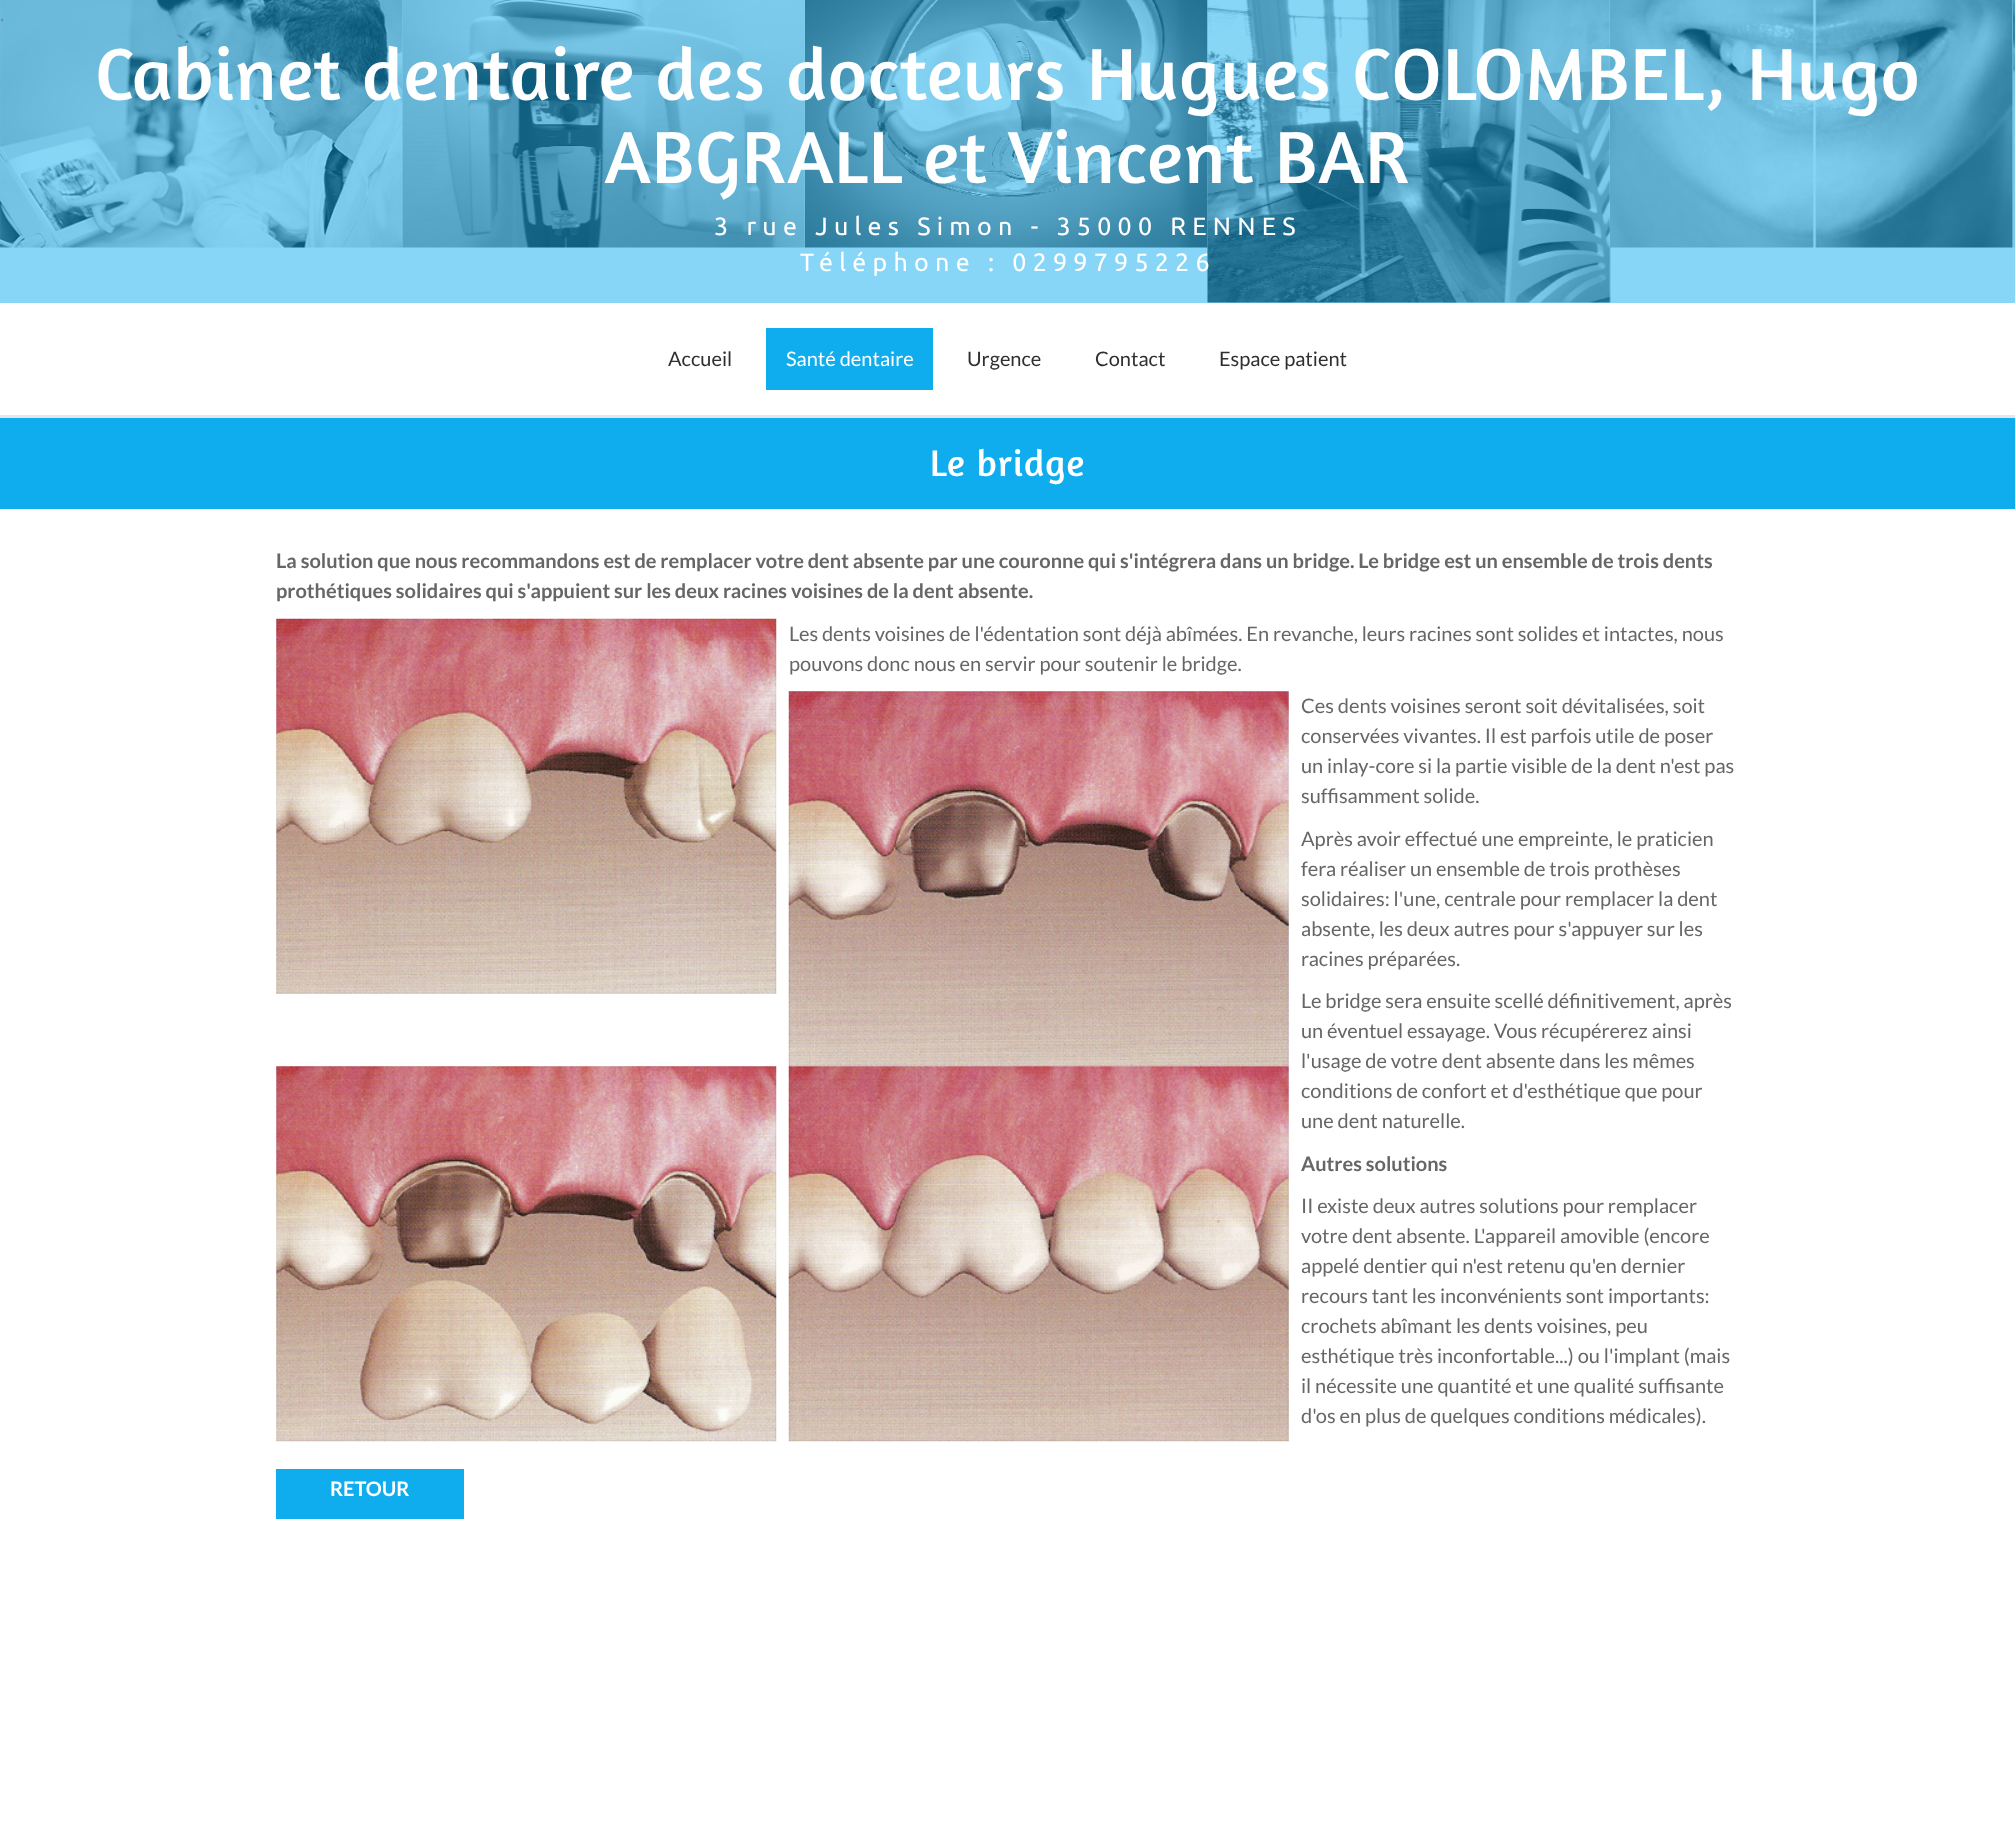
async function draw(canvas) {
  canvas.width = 2015
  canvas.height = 1843
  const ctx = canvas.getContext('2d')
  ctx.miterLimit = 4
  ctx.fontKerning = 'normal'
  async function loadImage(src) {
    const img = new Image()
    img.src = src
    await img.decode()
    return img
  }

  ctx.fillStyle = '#fff'
  ctx.fillRect(0, 0, 2015, 1843)
  ctx.fillStyle = '#87d6f7'
  ctx.fillRect(0, 0, 2015, 303)
  ctx.drawImage(await loadImage('image0.png'), 0, 0, 403, 248)
  ctx.drawImage(await loadImage('image1.png'), 402, 0, 404, 248)
  ctx.drawImage(await loadImage('image2.png'), 805, 0, 403, 248)
  ctx.drawImage(await loadImage('image3.png'), 1207, 0, 404, 303)
  ctx.drawImage(await loadImage('image4.png'), 1610, 0, 403, 248)
  ctx.drawImage(await loadImage('image5.png'), 2013, 0, 2, 248)
  ctx.font = '20px Lato'
  ctx.fillStyle = '#688fa0'
  ctx.fillText('.', 0, 21)
  ctx.letterSpacing = '1.25px'
  ctx.font = '75px Amaranth'
  ctx.fillStyle = '#fff'
  ctx.fillText('Cabinet dentaire des docteurs Hugues COLOMBEL, Hugo', 95, 100)
  ctx.fillText('ABGRALL et Vincent BAR', 605, 183)
  ctx.letterSpacing = '6.25px'
  ctx.font = '25px Ubuntu'
  ctx.fillText('3 rue Jules Simon - 35000 RENNES', 714, 235)
  ctx.fillText('Téléphone : 0299795226', 800, 271)
  ctx.fillStyle = '#e6e6e6'
  ctx.fillRect(0, 415, 2015, 3)
  ctx.letterSpacing = '0px'
  ctx.font = '20px Lato'
  ctx.fillStyle = '#2f2f30'
  ctx.fillText('Accueil', 668, 366)
  ctx.fillStyle = '#0facee'
  ctx.fillRect(766, 328, 167, 62)
  ctx.fillStyle = '#fff'
  ctx.fillText('Santé dentaire', 786, 366)
  ctx.fillStyle = '#2f2f30'
  ctx.fillText('Urgence', 967, 366)
  ctx.fillText('Contact', 1095, 366)
  ctx.fillText('Espace patient', 1219, 366)
  ctx.fillStyle = '#0facee'
  ctx.fillRect(0, 418, 2015, 91)
  ctx.letterSpacing = '1.25px'
  ctx.font = '37.5px Amaranth'
  ctx.fillStyle = '#fff'
  ctx.fillText('Le bridge', 930, 476)
  ctx.letterSpacing = '0px'
  ctx.font = 'bold 20px Lato'
  ctx.fillStyle = '#666'
  ctx.fillText('La solution que nous recommandons est de remplacer votre dent absente par une couronne qui s\'intégrera dans un bridge. Le bridge est un ensemble de trois dents', 276, 568)
  ctx.fillText('prothétiques solidaires qui s\'appuient sur les deux racines voisines de la dent absente.', 276, 598)
  ctx.drawImage(await loadImage('image6.png'), 276, 618, 501, 376)
  ctx.font = '20px Lato'
  ctx.fillText('Les dents voisines de l\'édentation sont déjà abîmées. En revanche, leurs racines sont solides et intactes, nous', 789, 641)
  ctx.fillText('pouvons donc nous en servir pour soutenir le bridge.', 789, 671)
  ctx.drawImage(await loadImage('image7.png'), 788, 691, 501, 376)
  ctx.fillText('Ces dents voisines seront soit dévitalisées, soit', 1301, 713)
  ctx.fillText('conservées vivantes. Il est parfois utile de poser', 1301, 743)
  ctx.fillText('un inlay-core si la partie visible de la dent n\'est pas', 1301, 773)
  ctx.fillText('suffisamment solide.', 1301, 803)
  ctx.fillText('Après avoir effectué une empreinte, le praticien', 1301, 846)
  ctx.fillText('fera réaliser un ensemble de trois prothèses', 1301, 876)
  ctx.fillText('solidaires: l\'une, centrale pour remplacer la dent', 1301, 906)
  ctx.fillText('absente, les deux autres pour s\'appuyer sur les', 1301, 936)
  ctx.fillText('racines préparées.', 1301, 966)
  ctx.drawImage(await loadImage('image8.png'), 276, 1066, 501, 376)
  ctx.fillText('Le bridge sera ensuite scellé définitivement, après', 1301, 1008)
  ctx.fillText('un éventuel essayage. Vous récupérerez ainsi', 1301, 1038)
  ctx.fillText('l\'usage de votre dent absente dans les mêmes', 1301, 1068)
  ctx.drawImage(await loadImage('image9.png'), 788, 1066, 501, 376)
  ctx.fillText('conditions de confort et d\'esthétique que pour', 1301, 1098)
  ctx.fillText('une dent naturelle.', 1301, 1128)
  ctx.font = 'bold 20px Lato'
  ctx.fillText('Autres solutions', 1301, 1171)
  ctx.font = '20px Lato'
  ctx.fillText('II existe deux autres solutions pour remplacer', 1301, 1213)
  ctx.fillText('votre dent absente. L\'appareil amovible (encore', 1301, 1243)
  ctx.fillText('appelé dentier qui n\'est retenu qu\'en dernier', 1301, 1273)
  ctx.fillText('recours tant les inconvénients sont importants:', 1301, 1303)
  ctx.fillText('crochets abîmant les dents voisines, peu', 1301, 1333)
  ctx.fillText('esthétique très inconfortable...) ou l\'implant (mais', 1301, 1363)
  ctx.fillText('il nécessite une quantité et une qualité suffisante', 1301, 1393)
  ctx.fillText('d\'os en plus de quelques conditions médicales).', 1301, 1423)
  ctx.fillStyle = '#0facee'
  ctx.fillRect(276, 1469, 188, 50)
  ctx.font = 'bold 20px Lato'
  ctx.fillStyle = '#fff'
  ctx.fillText('RETOUR', 330, 1496)
}

draw(document.querySelector('canvas'))
